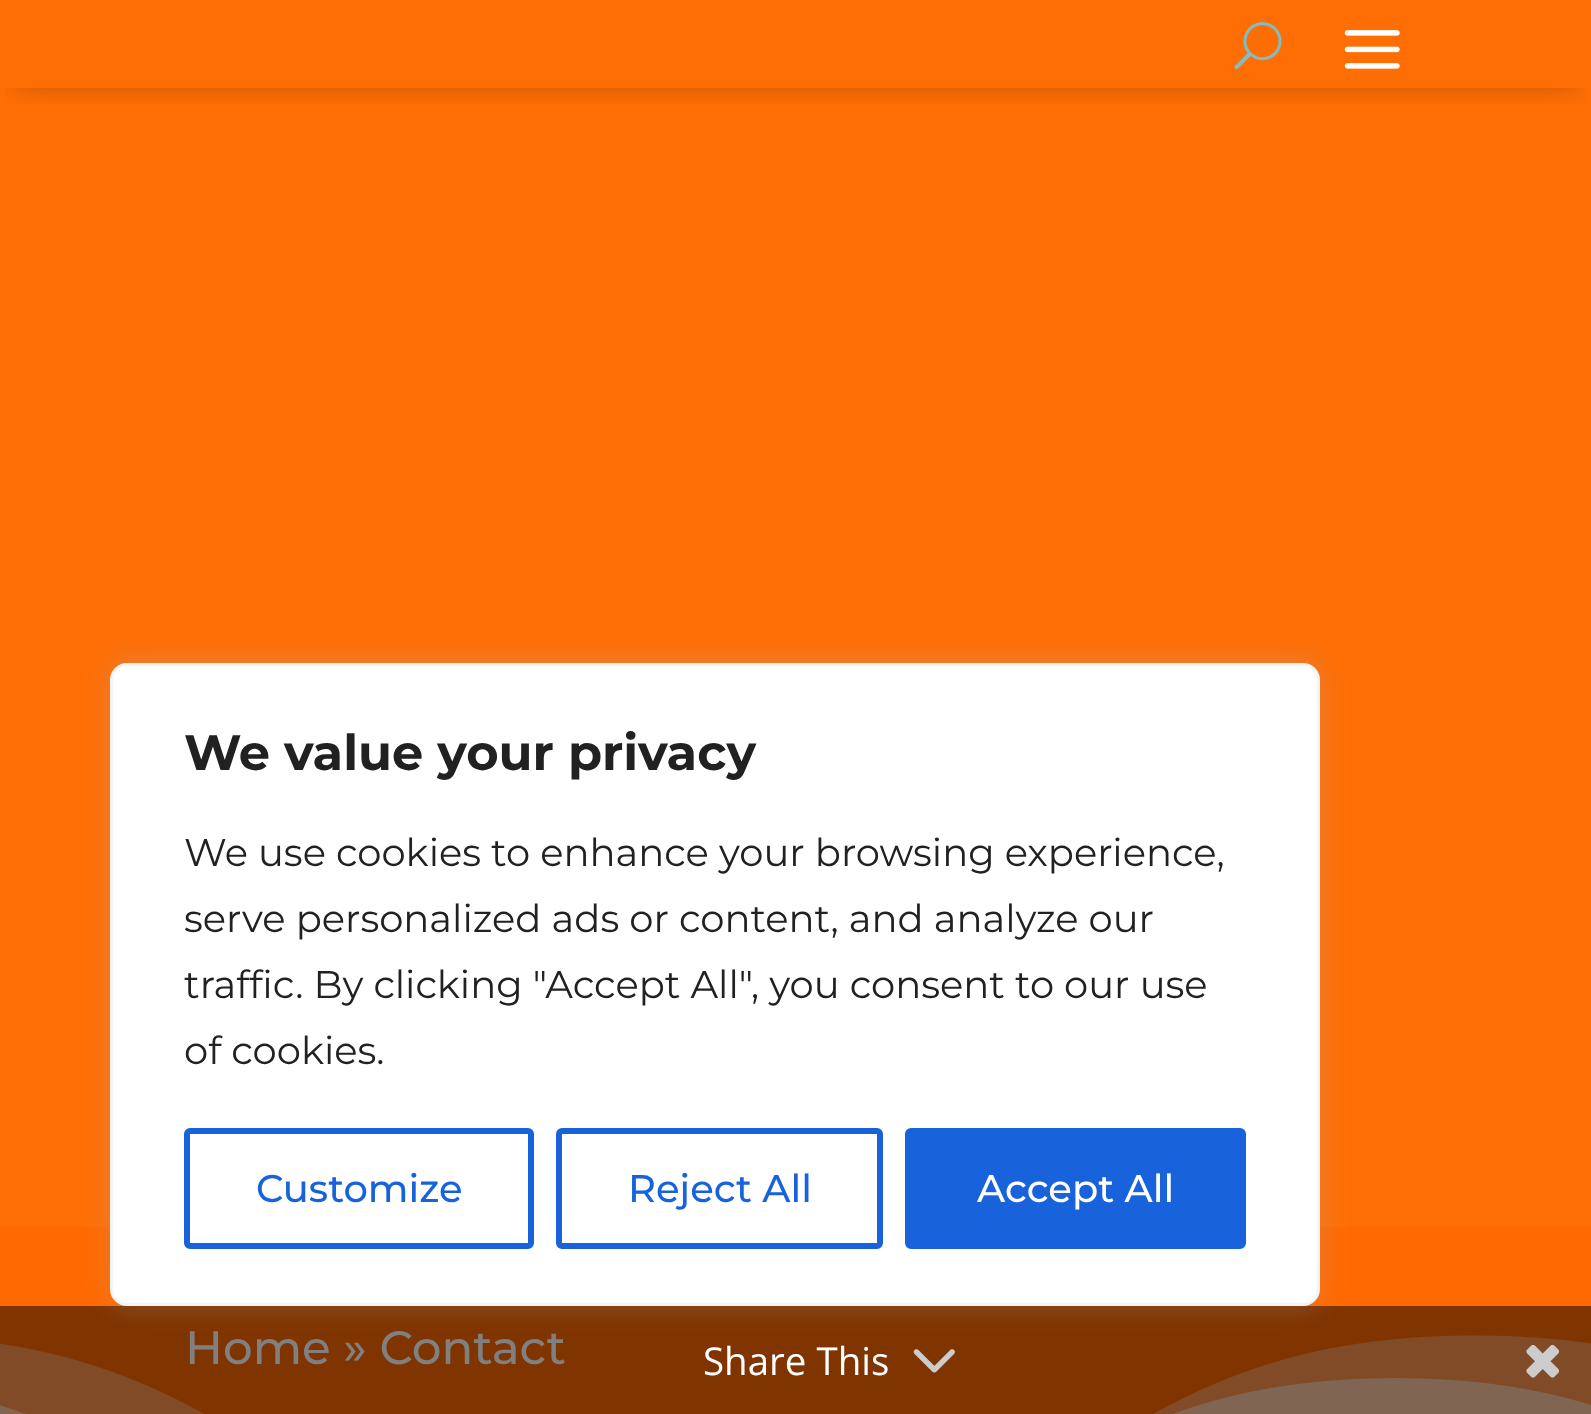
async function draw(canvas) {
  canvas.width = 1591
  canvas.height = 1414
  const ctx = canvas.getContext('2d')
  ctx.miterLimit = 4
  ctx.fontKerning = 'normal'
  async function loadImage(src) {
    const img = new Image()
    img.src = src
    await img.decode()
    return img
  }

  ctx.fillStyle = '#ff6900'
  ctx.fillRect(0, 0, 1591, 1414)
  ctx.fillStyle = '#803500'
  ctx.fillRect(0, 1306, 1591, 108)
  ctx.fillStyle = '#ff6e05'
  ctx.fillRect(0, 0, 1591, 1227)
  ctx.font = '500 46.75px Montserrat'
  ctx.fillStyle = '#808080'
  ctx.fillText('Home » Contact', 185, 1364)
  ctx.drawImage(await loadImage('image2.png'), 0, 1335, 1591, 79)
  ctx.fillStyle = '#acabab4d'
  ctx.filter = 'blur(14px)'
  ctx.beginPath()
  ctx.roundRect(110, 660, 1210, 644, 17)
  ctx.fill()
  ctx.filter = 'none'
  ctx.fillStyle = '#fff'
  ctx.beginPath()
  ctx.roundRect(111.5, 664.5, 1207, 640, 15.5)
  ctx.fill()
  ctx.strokeStyle = '#f4f4f4'
  ctx.lineWidth = 3
  ctx.stroke()
  ctx.font = 'bold 49.5px Montserrat'
  ctx.fillStyle = '#212121'
  ctx.fillText('We value your privacy', 184, 770)
  ctx.font = '38.5px Montserrat'
  ctx.fillText('We use cookies to enhance your browsing experience,', 184, 866)
  ctx.fillText('serve personalized ads or content, and analyze our', 184, 932)
  ctx.fillText('traffic. By clicking "Accept All", you consent to our use', 184, 998)
  ctx.fillText('of cookies.', 184, 1064)
  ctx.beginPath()
  ctx.roundRect(187, 1131, 344, 115, 3)
  ctx.strokeStyle = '#1863dc'
  ctx.lineWidth = 6
  ctx.stroke()
  ctx.font = '500 38.5px Montserrat'
  ctx.fillStyle = '#1863dc'
  ctx.fillText('Customize', 256, 1202)
  ctx.beginPath()
  ctx.roundRect(559, 1131, 321, 115, 3)
  ctx.stroke()
  ctx.fillText('Reject All', 628, 1202)
  ctx.beginPath()
  ctx.roundRect(908, 1131, 335, 115, 3)
  ctx.fill()
  ctx.stroke()
  ctx.fillStyle = '#fff'
  ctx.fillText('Accept All', 977, 1202)
  ctx.save()
  ctx.beginPath()
  ctx.rect(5, 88, 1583, 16)
  ctx.clip()
  ctx.fillStyle = '#0000004d'
  ctx.filter = 'blur(14px)'
  ctx.beginPath()
  ctx.rect(17, 28, 1559, 55)
  ctx.fill()
  ctx.filter = 'none'
  ctx.restore()
  ctx.drawImage(await loadImage('image0.png'), 1234, 22, 48, 48)
  ctx.drawImage(await loadImage('image1.png'), 1344, 30, 56, 39)
  ctx.font = '38.5px Open Sans'
  ctx.fillText('Share This', 703, 1375)
  ctx.drawImage(await loadImage('image3.png'), 913, 1349, 42, 24)
  ctx.drawImage(await loadImage('image4.png'), 1526, 1344, 34, 34)
}

draw(document.querySelector('canvas'))
